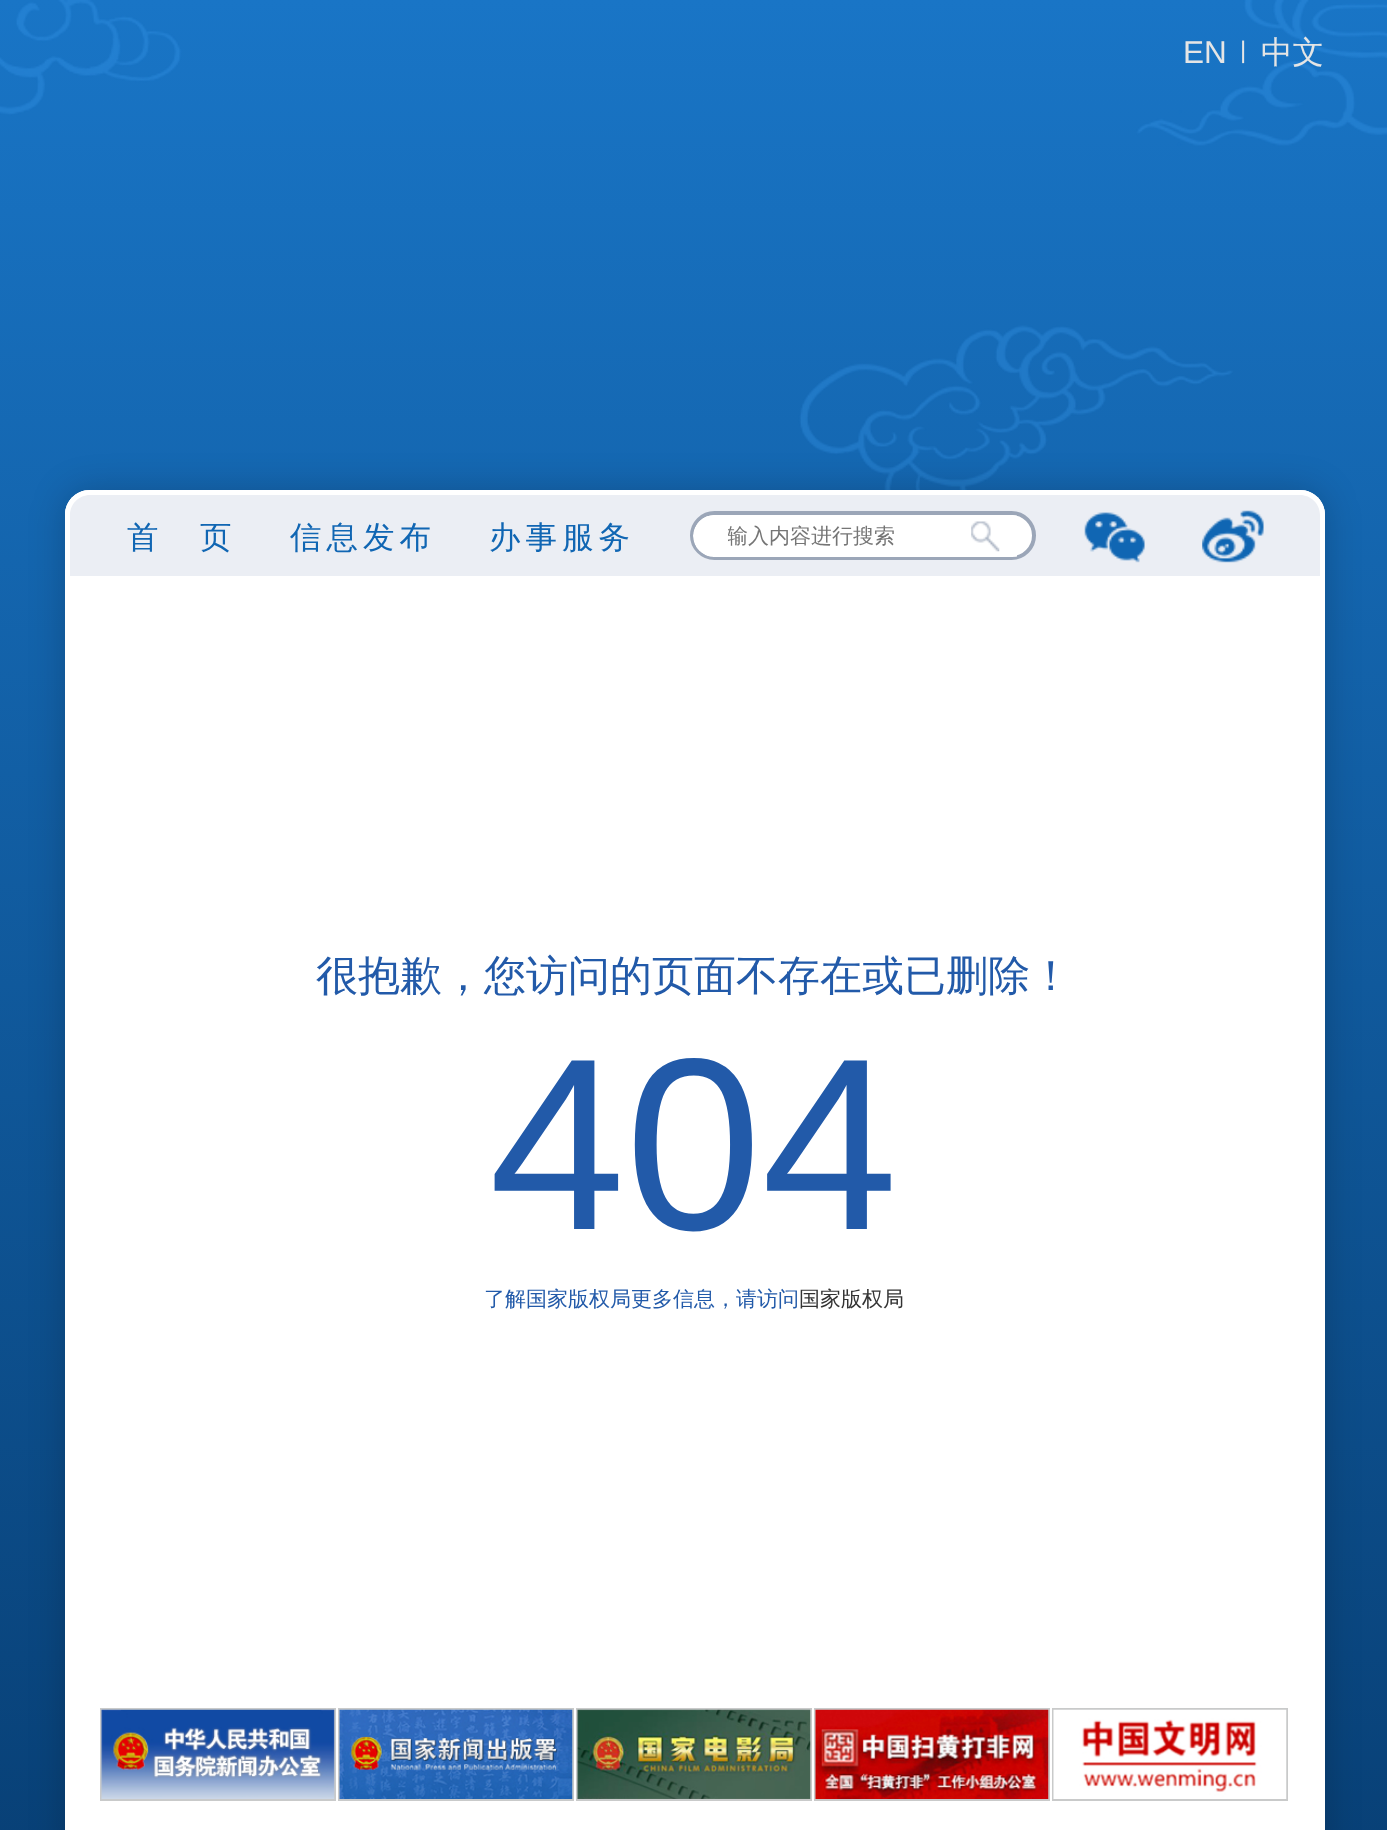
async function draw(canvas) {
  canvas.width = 1387
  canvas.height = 1830
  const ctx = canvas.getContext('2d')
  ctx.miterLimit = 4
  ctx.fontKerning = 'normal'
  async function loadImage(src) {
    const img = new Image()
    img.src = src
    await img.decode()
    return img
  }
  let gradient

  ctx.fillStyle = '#fff'
  ctx.fillRect(0, 0, 1387, 1830)
  gradient = ctx.createLinearGradient(694, 0, 694, 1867)
  gradient.addColorStop(0, '#1975c6')
  gradient.addColorStop(1, '#084076')
  ctx.fillStyle = gradient
  ctx.fillRect(0, 0, 1387, 1830)
  ctx.drawImage(await loadImage('image0.png'), 0, 0, 1387, 490)
  ctx.font = '31.5px Liberation Sans'
  ctx.fillStyle = '#e5e5e5'
  ctx.fillText('EN', 1183, 63)
  ctx.font = '24px Liberation Sans'
  ctx.fillText('|', 1240, 58)
  ctx.font = '500 31.5px WenQuanYi Zen Hei'
  ctx.fillText('中文', 1261, 63)
  ctx.fillStyle = '#00000033'
  ctx.filter = 'blur(17.5px)'
  ctx.beginPath()
  ctx.roundRect(65, 490, 1260, 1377, 25)
  ctx.fill()
  ctx.filter = 'none'
  ctx.fillStyle = '#fff'
  ctx.beginPath()
  ctx.moveTo(90, 490)
  ctx.lineTo(1300, 490)
  ctx.bezierCurveTo(1314, 490, 1325, 501, 1325, 515)
  ctx.lineTo(1325, 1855)
  ctx.lineTo(65, 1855)
  ctx.lineTo(65, 515)
  ctx.bezierCurveTo(65, 501, 76, 490, 90, 490)
  ctx.closePath()
  ctx.fill()
  ctx.fillStyle = '#ebeef4'
  ctx.beginPath()
  ctx.roundRect(65, 490, 1260, 86, [25, 25, 0, 0])
  ctx.fill()
  ctx.fillStyle = '#fff'
  ctx.beginPath()
  ctx.moveTo(90, 490)
  ctx.lineTo(1300, 490)
  ctx.bezierCurveTo(1313, 490, 1325, 501, 1325, 515)
  ctx.lineTo(1325, 576)
  ctx.lineTo(65, 576)
  ctx.lineTo(65, 515)
  ctx.bezierCurveTo(65, 501, 76, 490, 90, 490)
  ctx.closePath()
  ctx.moveTo(90, 495)
  ctx.lineTo(1300, 495)
  ctx.bezierCurveTo(1311, 495, 1320, 504, 1320, 515)
  ctx.lineTo(1320, 576)
  ctx.lineTo(70, 576)
  ctx.lineTo(70, 515)
  ctx.bezierCurveTo(70, 504, 79, 495, 90, 495)
  ctx.closePath()
  ctx.fill('evenodd')
  ctx.letterSpacing = '5px'
  ctx.fillStyle = '#1066b3'
  ctx.fillText('首　页', 127, 548)
  ctx.fillText('信息发布', 290, 548)
  ctx.fillText('办事服务', 489, 548)
  ctx.fillStyle = '#fff'
  ctx.beginPath()
  ctx.roundRect(692, 513, 342, 45, 22.5)
  ctx.fill()
  ctx.strokeStyle = '#9ba6b8'
  ctx.lineWidth = 4
  ctx.stroke()
  ctx.save()
  ctx.beginPath()
  ctx.roundRect(693, 515, 340, 42, 21)
  ctx.clip()
  ctx.beginPath()
  ctx.roundRect(693, 515, 324, 42, [21, 0, 0, 21])
  ctx.fill()
  ctx.restore()
  ctx.save()
  ctx.beginPath()
  ctx.rect(728, 522, 271, 29)
  ctx.clip()
  ctx.letterSpacing = '0px'
  ctx.font = '500 21px WenQuanYi Zen Hei'
  ctx.fillStyle = '#757575'
  ctx.fillText('输入内容进行搜索', 727, 543)
  ctx.restore()
  ctx.drawImage(await loadImage('image1.png'), 971, 521, 29, 31)
  ctx.drawImage(await loadImage('image2.png'), 1084, 512, 61, 51)
  ctx.drawImage(await loadImage('image3.png'), 1202, 510, 62, 53)
  ctx.letterSpacing = '0px'
  ctx.font = '500 42px WenQuanYi Zen Hei'
  ctx.fillStyle = '#225aa9'
  ctx.fillText('很抱歉，您访问的页面不存在或已删除！', 316, 990)
  ctx.font = '245px Liberation Sans'
  ctx.fillText('404', 489, 1229)
  ctx.font = '500 21px WenQuanYi Zen Hei'
  ctx.fillText('了解国家版权局更多信息，请访问', 484, 1306)
  ctx.fillStyle = '#333'
  ctx.fillText('国家版权局', 799, 1306)
  ctx.strokeStyle = '#c9caca'
  ctx.lineWidth = 2
  ctx.strokeRect(101, 1709, 234, 91)
  ctx.drawImage(await loadImage('image4.png'), 101, 1709, 234, 90)
  ctx.strokeRect(339, 1709, 234, 91)
  ctx.drawImage(await loadImage('image5.png'), 339, 1709, 234, 90)
  ctx.strokeRect(577, 1709, 234, 91)
  ctx.drawImage(await loadImage('image6.png'), 577, 1709, 234, 90)
  ctx.strokeRect(815, 1709, 234, 91)
  ctx.drawImage(await loadImage('image7.png'), 815, 1709, 234, 90)
  ctx.strokeRect(1053, 1709, 234, 91)
  ctx.drawImage(await loadImage('image8.png'), 1053, 1709, 234, 90)
}

draw(document.querySelector('canvas'))
